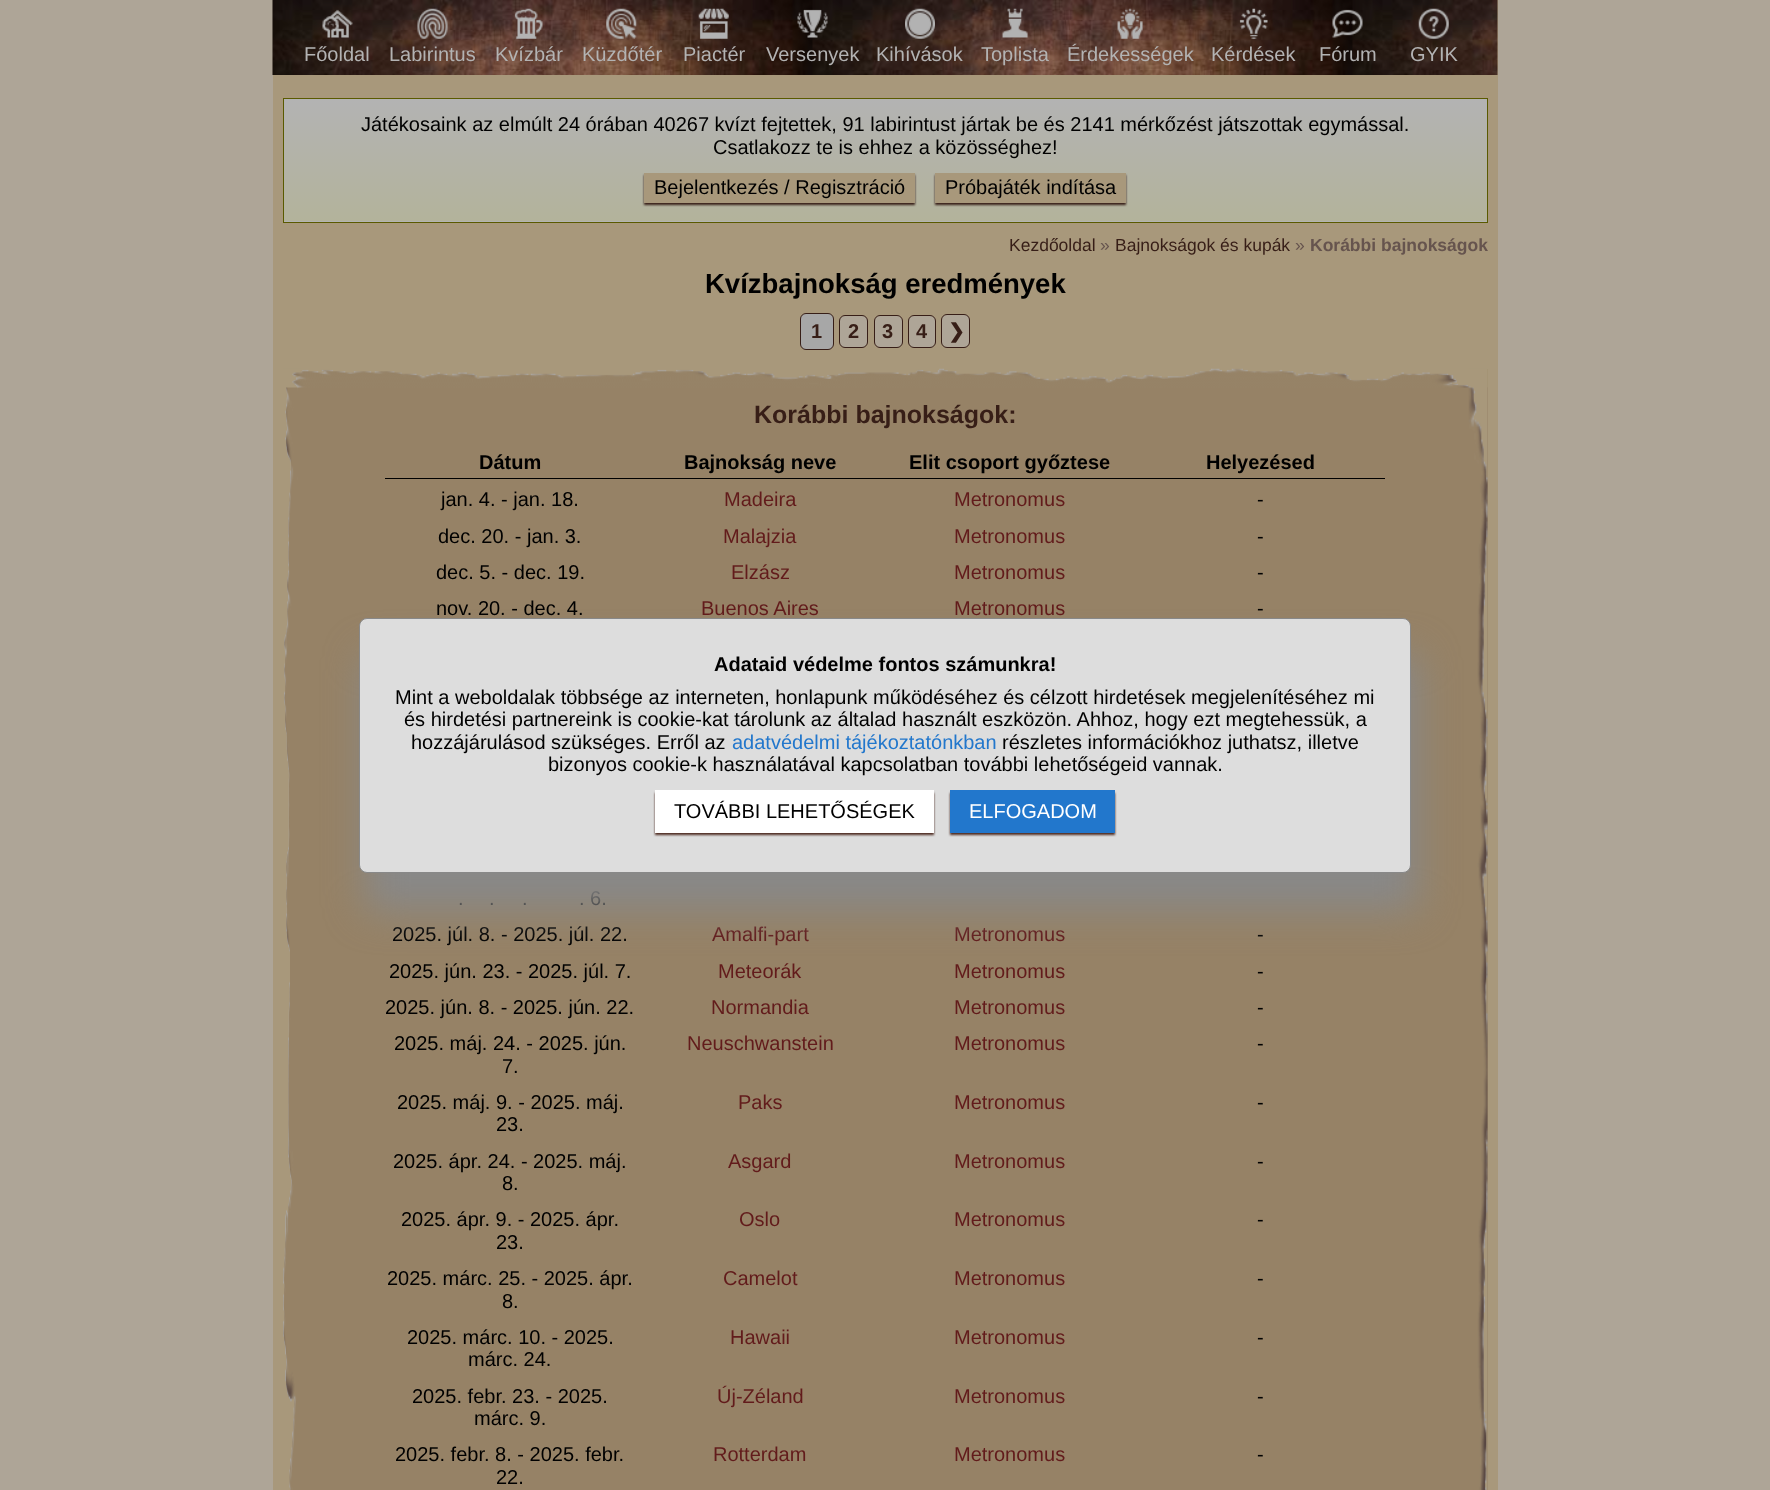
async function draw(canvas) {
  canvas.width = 1770
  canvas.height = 1490
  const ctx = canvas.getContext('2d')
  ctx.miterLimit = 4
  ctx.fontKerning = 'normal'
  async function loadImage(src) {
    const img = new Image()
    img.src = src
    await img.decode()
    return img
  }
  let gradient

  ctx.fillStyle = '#aea597'
  ctx.fillRect(0, 0, 1770, 1490)
  ctx.fillStyle = '#a8987b'
  ctx.fillRect(273, 0, 1225, 1490)
  ctx.drawImage(await loadImage('image0.png'), 272, 0, 1226, 75)
  ctx.drawImage(await loadImage('image1.png'), 322, 9, 31, 29)
  ctx.font = '20px Liberation Sans'
  ctx.fillStyle = '#b3b3b3'
  ctx.fillText('Főoldal', 304, 61)
  ctx.drawImage(await loadImage('image2.png'), 417, 8, 31, 31)
  ctx.fillText('Labirintus', 389, 61)
  ctx.drawImage(await loadImage('image3.png'), 514, 8, 29, 31)
  ctx.fillText('Kvízbár', 495, 61)
  ctx.drawImage(await loadImage('image4.png'), 606, 8, 31, 31)
  ctx.fillText('Küzdőtér', 582, 61)
  ctx.drawImage(await loadImage('image5.png'), 698, 8, 31, 31)
  ctx.fillText('Piactér', 683, 61)
  ctx.drawImage(await loadImage('image6.png'), 797, 9, 31, 29)
  ctx.fillText('Versenyek', 766, 61)
  ctx.drawImage(await loadImage('image7.png'), 905, 8, 30, 31)
  ctx.fillText('Kihívások', 876, 61)
  ctx.drawImage(await loadImage('image8.png'), 1002, 8, 26, 30)
  ctx.fillText('Toplista', 981, 61)
  ctx.drawImage(await loadImage('image9.png'), 1117, 8, 26, 31)
  ctx.fillText('Érdekességek', 1067, 61)
  ctx.drawImage(await loadImage('image10.png'), 1239, 8, 29, 31)
  ctx.fillText('Kérdések', 1211, 61)
  ctx.drawImage(await loadImage('image11.png'), 1332, 9, 31, 29)
  ctx.fillText('Fórum', 1319, 61)
  ctx.drawImage(await loadImage('image12.png'), 1418, 8, 31, 31)
  ctx.fillText('GYIK', 1410, 61)
  gradient = ctx.createLinearGradient(885, 99, 885, 221)
  gradient.addColorStop(0, '#b3b3b3')
  gradient.addColorStop(1, '#b3b39b')
  ctx.fillStyle = gradient
  ctx.fillRect(284, 99, 1203, 122)
  gradient = ctx.createLinearGradient(885, 221, 885, 344)
  gradient.addColorStop(0, '#b3b3b3')
  gradient.addColorStop(1, '#b3b39b')
  ctx.fillStyle = gradient
  ctx.fillRect(283, 221, 1205, 1)
  ctx.strokeStyle = '#5a5a00'
  ctx.strokeRect(283.5, 98.5, 1204, 124)
  ctx.fillStyle = '#000'
  ctx.fillText('Játékosaink az elmúlt 24 órában 40267 kvízt fejtettek, 91 labirintust jártak be és 2141 mérkőzést játszottak egymással.', 361, 131)
  ctx.fillText('Csatlakozz te is ehhez a közösséghez!', 713, 154)
  ctx.fillStyle = '#371e17'
  ctx.filter = 'blur(1px)'
  ctx.beginPath()
  ctx.rect(644, 175, 271, 30)
  ctx.fill()
  ctx.filter = 'none'
  ctx.fillStyle = '#a8987b'
  ctx.fillRect(644, 173, 271, 30)
  ctx.fillStyle = '#000'
  ctx.fillText('Bejelentkezés / Regisztráció', 654, 194)
  ctx.fillStyle = '#371e17'
  ctx.filter = 'blur(1px)'
  ctx.beginPath()
  ctx.rect(935, 175, 191, 30)
  ctx.fill()
  ctx.filter = 'none'
  ctx.fillStyle = '#a8987b'
  ctx.fillRect(935, 173, 191, 30)
  ctx.fillStyle = '#000'
  ctx.fillText('Próbajáték indítása', 945, 194)
  ctx.font = '17.5px Liberation Sans'
  ctx.fillStyle = '#371e17'
  ctx.fillText('Kezdőoldal', 1009, 251)
  ctx.fillStyle = '#66544e'
  ctx.fillText('»', 1100, 251)
  ctx.fillStyle = '#371e17'
  ctx.fillText('Bajnokságok és kupák', 1115, 251)
  ctx.fillStyle = '#66544e'
  ctx.fillText('»', 1295, 251)
  ctx.font = 'bold 17.5px Liberation Sans'
  ctx.fillText('Korábbi bajnokságok', 1310, 251)
  ctx.font = 'bold 27.5px Liberation Sans'
  ctx.fillStyle = '#000'
  ctx.fillText('Kvízbajnokság eredmények', 705, 293)
  ctx.fillStyle = '#a7a7a7'
  ctx.beginPath()
  ctx.roundRect(800.5, 313.5, 33, 36, 5.5)
  ctx.fill()
  ctx.strokeStyle = '#371e17'
  ctx.stroke()
  ctx.font = 'bold 20px Liberation Sans'
  ctx.fillStyle = '#371e17'
  ctx.fillText('1', 811, 338)
  ctx.fillStyle = '#aea597'
  ctx.beginPath()
  ctx.roundRect(839.5, 315.5, 28, 32, 5.5)
  ctx.fill()
  ctx.stroke()
  ctx.fillStyle = '#371e17'
  ctx.fillText('2', 848, 338)
  ctx.fillStyle = '#aea597'
  ctx.beginPath()
  ctx.roundRect(874.5, 315.5, 28, 32, 5.5)
  ctx.fill()
  ctx.stroke()
  ctx.fillStyle = '#371e17'
  ctx.fillText('3', 882, 338)
  ctx.fillStyle = '#aea597'
  ctx.beginPath()
  ctx.roundRect(908.5, 315.5, 27, 32, 5.5)
  ctx.fill()
  ctx.stroke()
  ctx.fillStyle = '#371e17'
  ctx.fillText('4', 916, 338)
  ctx.fillStyle = '#aea597'
  ctx.beginPath()
  ctx.roundRect(941.5, 314.5, 28, 33, 5.5)
  ctx.fill()
  ctx.stroke()
  ctx.font = 'bold 20px DejaVu Sans'
  ctx.fillStyle = '#371e17'
  ctx.fillText('❯', 948, 338)
  ctx.fillStyle = '#968266'
  ctx.fillRect(301, 369, 1187, 1121)
  ctx.drawImage(await loadImage('image13.png'), 283, 368, 1205, 1122)
  ctx.font = 'bold 25px Liberation Sans'
  ctx.fillStyle = '#371e17'
  ctx.fillText('Korábbi bajnokságok:', 754, 423)
  ctx.fillStyle = '#000'
  ctx.fillRect(385, 478, 1000, 1)
  ctx.font = 'bold 20px Liberation Sans'
  ctx.fillText('Dátum', 479, 469)
  ctx.fillText('Bajnokság neve', 684, 469)
  ctx.fillText('Elit csoport győztese', 909, 469)
  ctx.fillText('Helyezésed', 1206, 469)
  ctx.font = '20px Liberation Sans'
  ctx.fillText('jan. 4. - jan. 18.', 441, 506)
  ctx.fillStyle = '#621b1b'
  ctx.fillText('Madeira', 724, 506)
  ctx.fillText('Metronomus', 954, 506)
  ctx.fillStyle = '#000'
  ctx.fillText('-', 1257, 506)
  ctx.fillText('dec. 20. - jan. 3.', 438, 543)
  ctx.fillStyle = '#621b1b'
  ctx.fillText('Malajzia', 723, 543)
  ctx.fillText('Metronomus', 954, 543)
  ctx.fillStyle = '#000'
  ctx.fillText('-', 1257, 543)
  ctx.fillText('dec. 5. - dec. 19.', 436, 579)
  ctx.fillStyle = '#621b1b'
  ctx.fillText('Elzász', 731, 579)
  ctx.fillText('Metronomus', 954, 579)
  ctx.fillStyle = '#000'
  ctx.fillText('-', 1257, 579)
  ctx.fillText('nov. 20. - dec. 4.', 436, 615)
  ctx.fillStyle = '#621b1b'
  ctx.fillText('Buenos Aires', 701, 615)
  ctx.fillText('Metronomus', 954, 615)
  ctx.fillStyle = '#000'
  ctx.fillText('-', 1257, 615)
  ctx.fillText('.', 458, 905)
  ctx.fillText('.', 489, 905)
  ctx.fillText('.', 522, 905)
  ctx.fillText('. 6.', 579, 905)
  ctx.fillText('2025. júl. 8. - 2025. júl. 22.', 392, 941)
  ctx.fillStyle = '#621b1b'
  ctx.fillText('Amalfi-part', 712, 941)
  ctx.fillText('Metronomus', 954, 941)
  ctx.fillStyle = '#000'
  ctx.fillText('-', 1257, 941)
  ctx.fillText('2025. jún. 23. - 2025. júl. 7.', 389, 978)
  ctx.fillStyle = '#621b1b'
  ctx.fillText('Meteorák', 718, 978)
  ctx.fillText('Metronomus', 954, 978)
  ctx.fillStyle = '#000'
  ctx.fillText('-', 1257, 978)
  ctx.fillText('2025. jún. 8. - 2025. jún. 22.', 385, 1014)
  ctx.fillStyle = '#621b1b'
  ctx.fillText('Normandia', 711, 1014)
  ctx.fillText('Metronomus', 954, 1014)
  ctx.fillStyle = '#000'
  ctx.fillText('-', 1257, 1014)
  ctx.fillText('2025. máj. 24. - 2025. jún.', 394, 1050)
  ctx.fillText('7.', 502, 1073)
  ctx.fillStyle = '#621b1b'
  ctx.fillText('Neuschwanstein', 687, 1050)
  ctx.fillText('Metronomus', 954, 1050)
  ctx.fillStyle = '#000'
  ctx.fillText('-', 1257, 1050)
  ctx.fillText('2025. máj. 9. - 2025. máj.', 397, 1109)
  ctx.fillText('23.', 496, 1131)
  ctx.fillStyle = '#621b1b'
  ctx.fillText('Paks', 738, 1109)
  ctx.fillText('Metronomus', 954, 1109)
  ctx.fillStyle = '#000'
  ctx.fillText('-', 1257, 1109)
  ctx.fillText('2025. ápr. 24. - 2025. máj.', 393, 1168)
  ctx.fillText('8.', 502, 1190)
  ctx.fillStyle = '#621b1b'
  ctx.fillText('Asgard', 728, 1168)
  ctx.fillText('Metronomus', 954, 1168)
  ctx.fillStyle = '#000'
  ctx.fillText('-', 1257, 1168)
  ctx.fillText('2025. ápr. 9. - 2025. ápr.', 401, 1226)
  ctx.fillText('23.', 496, 1249)
  ctx.fillStyle = '#621b1b'
  ctx.fillText('Oslo', 739, 1226)
  ctx.fillText('Metronomus', 954, 1226)
  ctx.fillStyle = '#000'
  ctx.fillText('-', 1257, 1226)
  ctx.fillText('2025. márc. 25. - 2025. ápr.', 387, 1285)
  ctx.fillText('8.', 502, 1308)
  ctx.fillStyle = '#621b1b'
  ctx.fillText('Camelot', 723, 1285)
  ctx.fillText('Metronomus', 954, 1285)
  ctx.fillStyle = '#000'
  ctx.fillText('-', 1257, 1285)
  ctx.fillText('2025. márc. 10. - 2025.', 407, 1344)
  ctx.fillText('márc. 24.', 468, 1366)
  ctx.fillStyle = '#621b1b'
  ctx.fillText('Hawaii', 730, 1344)
  ctx.fillText('Metronomus', 954, 1344)
  ctx.fillStyle = '#000'
  ctx.fillText('-', 1257, 1344)
  ctx.fillText('2025. febr. 23. - 2025.', 412, 1403)
  ctx.fillText('márc. 9.', 474, 1425)
  ctx.fillStyle = '#621b1b'
  ctx.fillText('Új-Zéland', 717, 1403)
  ctx.fillText('Metronomus', 954, 1403)
  ctx.fillStyle = '#000'
  ctx.fillText('-', 1257, 1403)
  ctx.fillText('2025. febr. 8. - 2025. febr.', 395, 1461)
  ctx.fillText('22.', 496, 1484)
  ctx.fillStyle = '#621b1b'
  ctx.fillText('Rotterdam', 713, 1461)
  ctx.fillText('Metronomus', 954, 1461)
  ctx.fillStyle = '#000'
  ctx.fillText('-', 1257, 1461)
  ctx.fillStyle = '#888'
  ctx.filter = 'blur(19px)'
  ctx.beginPath()
  ctx.roundRect(365, 655, 1053, 255, 8)
  ctx.fill()
  ctx.filter = 'none'
  ctx.fillStyle = '#ddd'
  ctx.beginPath()
  ctx.roundRect(359.5, 618.5, 1051, 254, 7.5)
  ctx.fill()
  ctx.strokeStyle = '#888'
  ctx.stroke()
  ctx.font = 'bold 20px Liberation Sans'
  ctx.fillStyle = '#000'
  ctx.fillText('Adataid védelme fontos számunkra!', 714, 671)
  ctx.font = '20px Liberation Sans'
  ctx.fillText('Mint a weboldalak többsége az interneten, honlapunk működéséhez és célzott hirdetések megjelenítéséhez mi', 395, 704)
  ctx.fillText('és hirdetési partnereink is cookie-kat tárolunk az általad használt eszközön. Ahhoz, hogy ezt megtehessük, a', 404, 726)
  ctx.fillText('hozzájárulásod szükséges. Erről az', 411, 749)
  ctx.fillStyle = '#27c'
  ctx.fillText('adatvédelmi tájékoztatónkban', 732, 749)
  ctx.fillStyle = '#000'
  ctx.fillText('részletes információkhoz juthatsz, illetve', 1002, 749)
  ctx.fillText('bizonyos cookie-k használatával kapcsolatban további lehetőségeid vannak.', 548, 771)
  ctx.fillStyle = '#4e2b21'
  ctx.filter = 'blur(1px)'
  ctx.beginPath()
  ctx.rect(655, 793, 279, 42)
  ctx.fill()
  ctx.filter = 'none'
  ctx.fillStyle = '#fff'
  ctx.fillRect(655, 790, 279, 43)
  ctx.fillStyle = '#000'
  ctx.fillText('TOVÁBBI LEHETŐSÉGEK', 674, 818)
  ctx.fillStyle = '#4e2b21'
  ctx.filter = 'blur(1px)'
  ctx.beginPath()
  ctx.rect(950, 793, 165, 42)
  ctx.fill()
  ctx.filter = 'none'
  ctx.fillStyle = '#27c'
  ctx.fillRect(950, 790, 165, 43)
  ctx.fillStyle = '#fff'
  ctx.fillText('ELFOGADOM', 969, 818)
}

draw(document.querySelector('canvas'))
